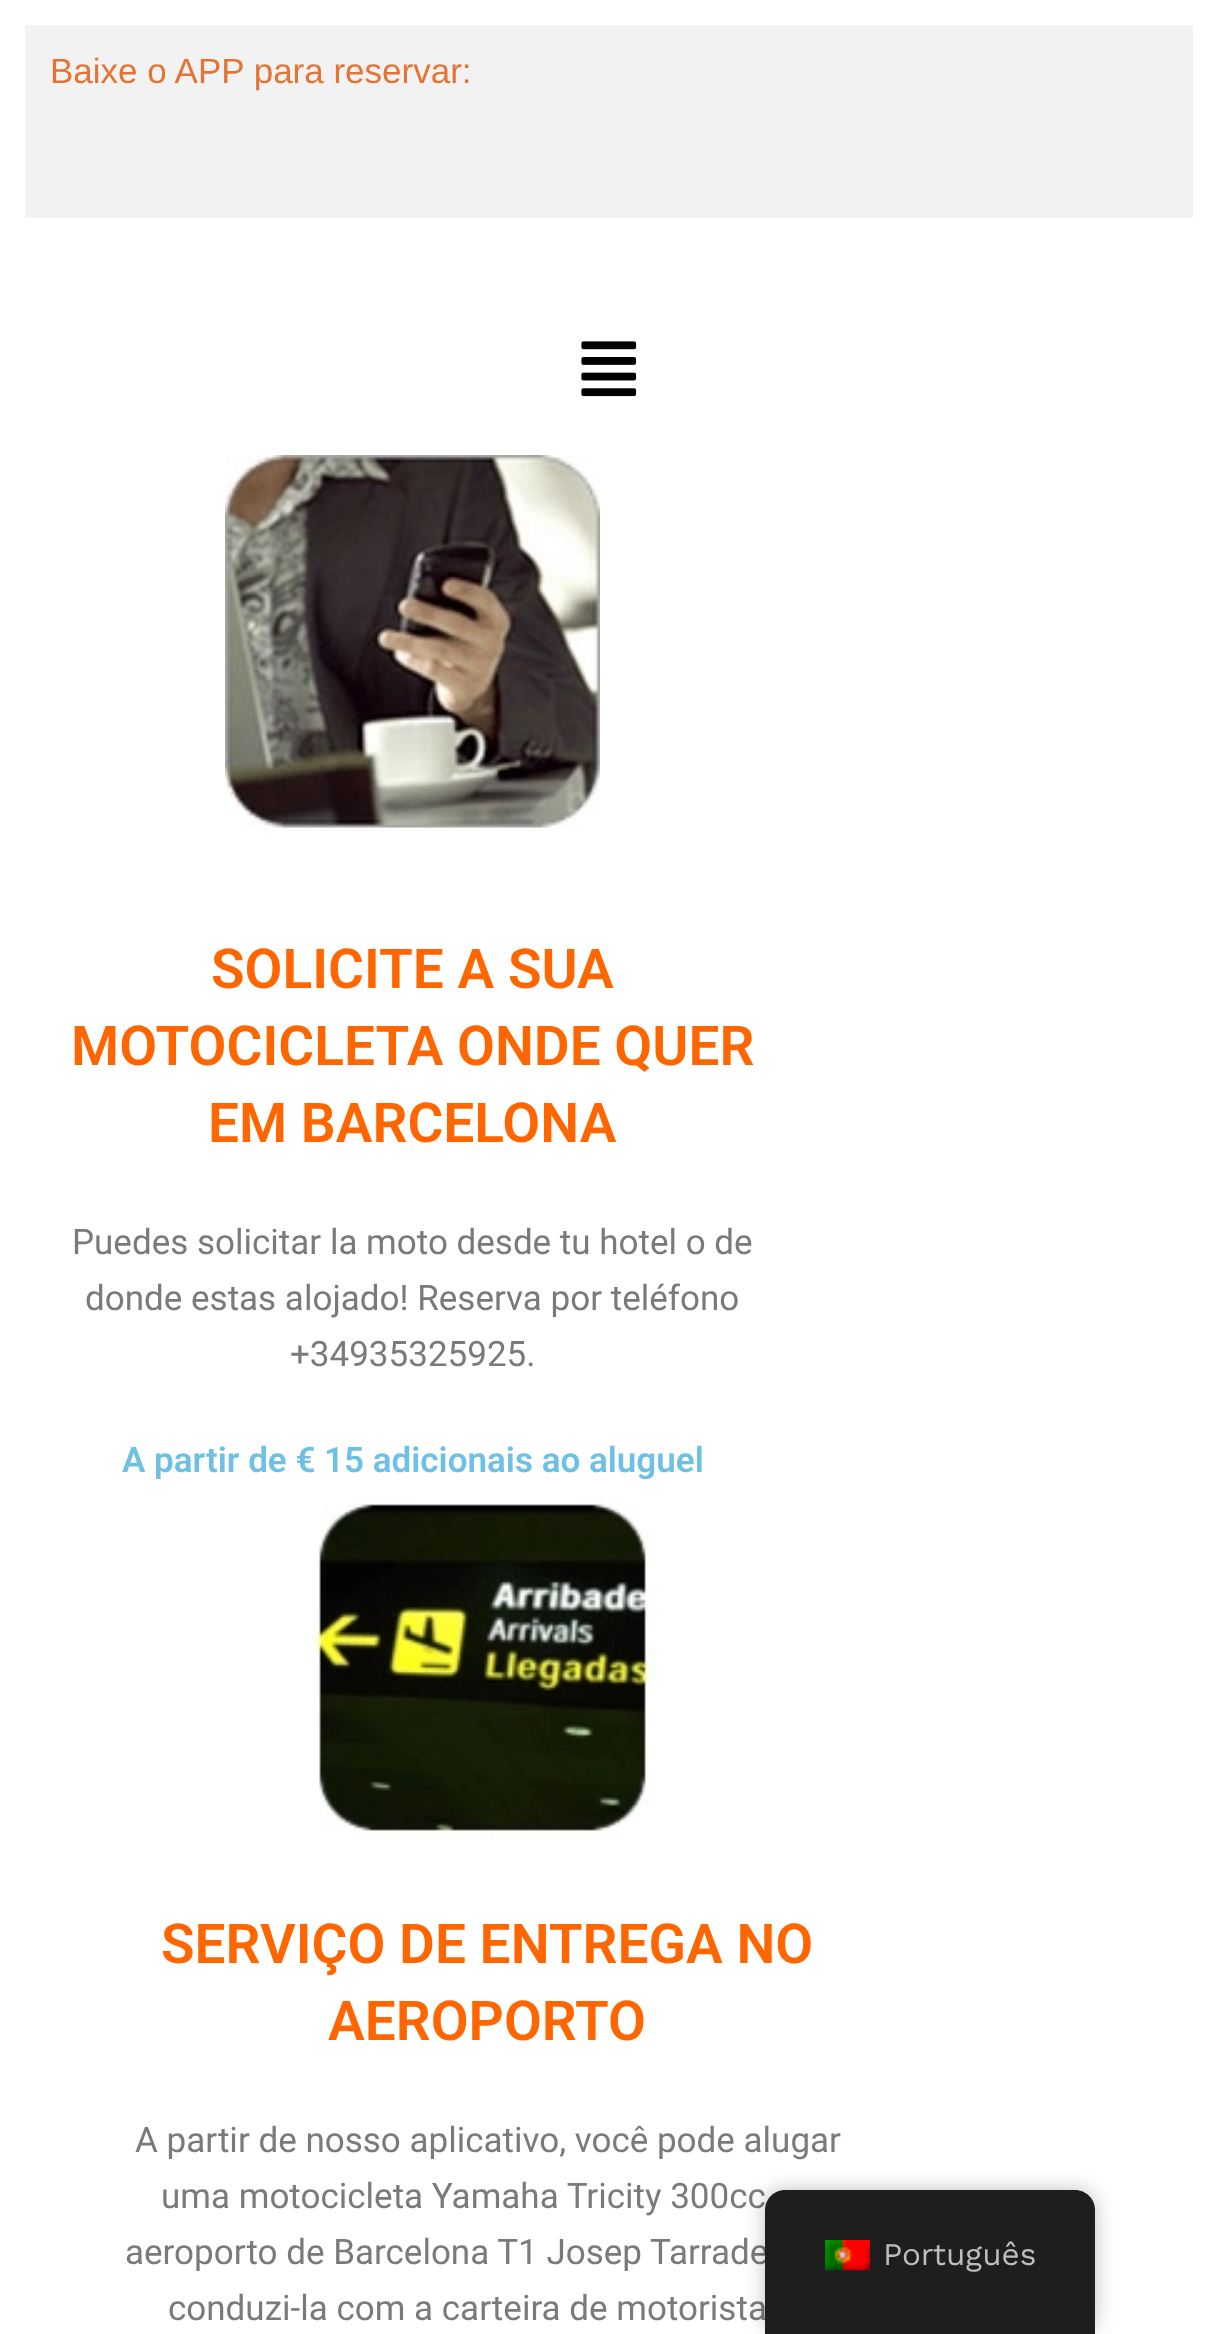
async function draw(canvas) {
  canvas.width = 1216
  canvas.height = 2334
  const ctx = canvas.getContext('2d')
  ctx.miterLimit = 4
  ctx.fontKerning = 'normal'
  async function loadImage(src) {
    const img = new Image()
    img.src = src
    await img.decode()
    return img
  }

  ctx.fillStyle = '#fff'
  ctx.fillRect(0, 0, 1216, 2334)
  ctx.fillStyle = '#f2f2f2'
  ctx.fillRect(25, 25, 1168, 193)
  ctx.font = '35px Liberation Sans'
  ctx.fillStyle = '#e47434'
  ctx.fillText('Baixe o APP para reservar:', 50, 83)
  ctx.drawImage(await loadImage('image0.png'), 581, 341, 56, 56)
  ctx.drawImage(await loadImage('image1.png'), 225, 455, 375, 373)
  ctx.font = '600 55px Roboto'
  ctx.fillStyle = '#f60'
  ctx.fillText('SOLICITE A SUA', 211, 988)
  ctx.fillText('MOTOCICLETA ONDE QUER', 71, 1065)
  ctx.fillText('EM BARCELONA', 208, 1142)
  ctx.font = '35px Roboto'
  ctx.fillStyle = '#7a7a7a'
  ctx.fillText('Puedes solicitar la moto desde tu hotel o de', 72, 1254)
  ctx.fillText('donde estas alojado! Reserva por teléfono', 85, 1310)
  ctx.fillText('+34935325925.', 290, 1366)
  ctx.font = '600 35px Roboto'
  ctx.fillStyle = '#6ec1e4'
  ctx.fillText('A partir de € 15 adicionais ao aluguel', 122, 1472)
  ctx.drawImage(await loadImage('image2.png'), 310, 1498, 347, 342)
  ctx.font = '600 55px Roboto'
  ctx.fillStyle = '#f60'
  ctx.fillText('SERVIÇO DE ENTREGA NO', 161, 1963)
  ctx.fillText('AEROPORTO', 328, 2040)
  ctx.font = '35px Roboto'
  ctx.fillStyle = '#7a7a7a'
  ctx.fillText('A partir de nosso aplicativo, você pode alugar', 135, 2152)
  ctx.fillText('uma motocicleta Yamaha Tricity 300cc', 161, 2208)
  ctx.fillText('aeroporto de Barcelona T1 Josep Tarrade', 125, 2264)
  ctx.fillText('conduzi-la com a carteira de motorista', 168, 2320)
  ctx.fillStyle = '#00000040'
  ctx.filter = 'blur(10px)'
  ctx.beginPath()
  ctx.roundRect(765, 2190, 330, 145, 20)
  ctx.fill()
  ctx.filter = 'none'
  ctx.fillStyle = '#1e1e1e'
  ctx.beginPath()
  ctx.moveTo(785, 2190)
  ctx.lineTo(1075, 2190)
  ctx.bezierCurveTo(1086, 2190, 1095, 2199, 1095, 2210)
  ctx.lineTo(1095, 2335)
  ctx.lineTo(765, 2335)
  ctx.lineTo(765, 2210)
  ctx.bezierCurveTo(765, 2199, 774, 2190, 785, 2190)
  ctx.closePath()
  ctx.fill()
  ctx.drawImage(await loadImage('image3.png'), 825, 2240, 45, 31)
  ctx.font = '31.5px Work Sans'
  ctx.fillStyle = '#bdbdbd'
  ctx.fillText('Português', 883, 2265)
}

draw(document.querySelector('canvas'))
